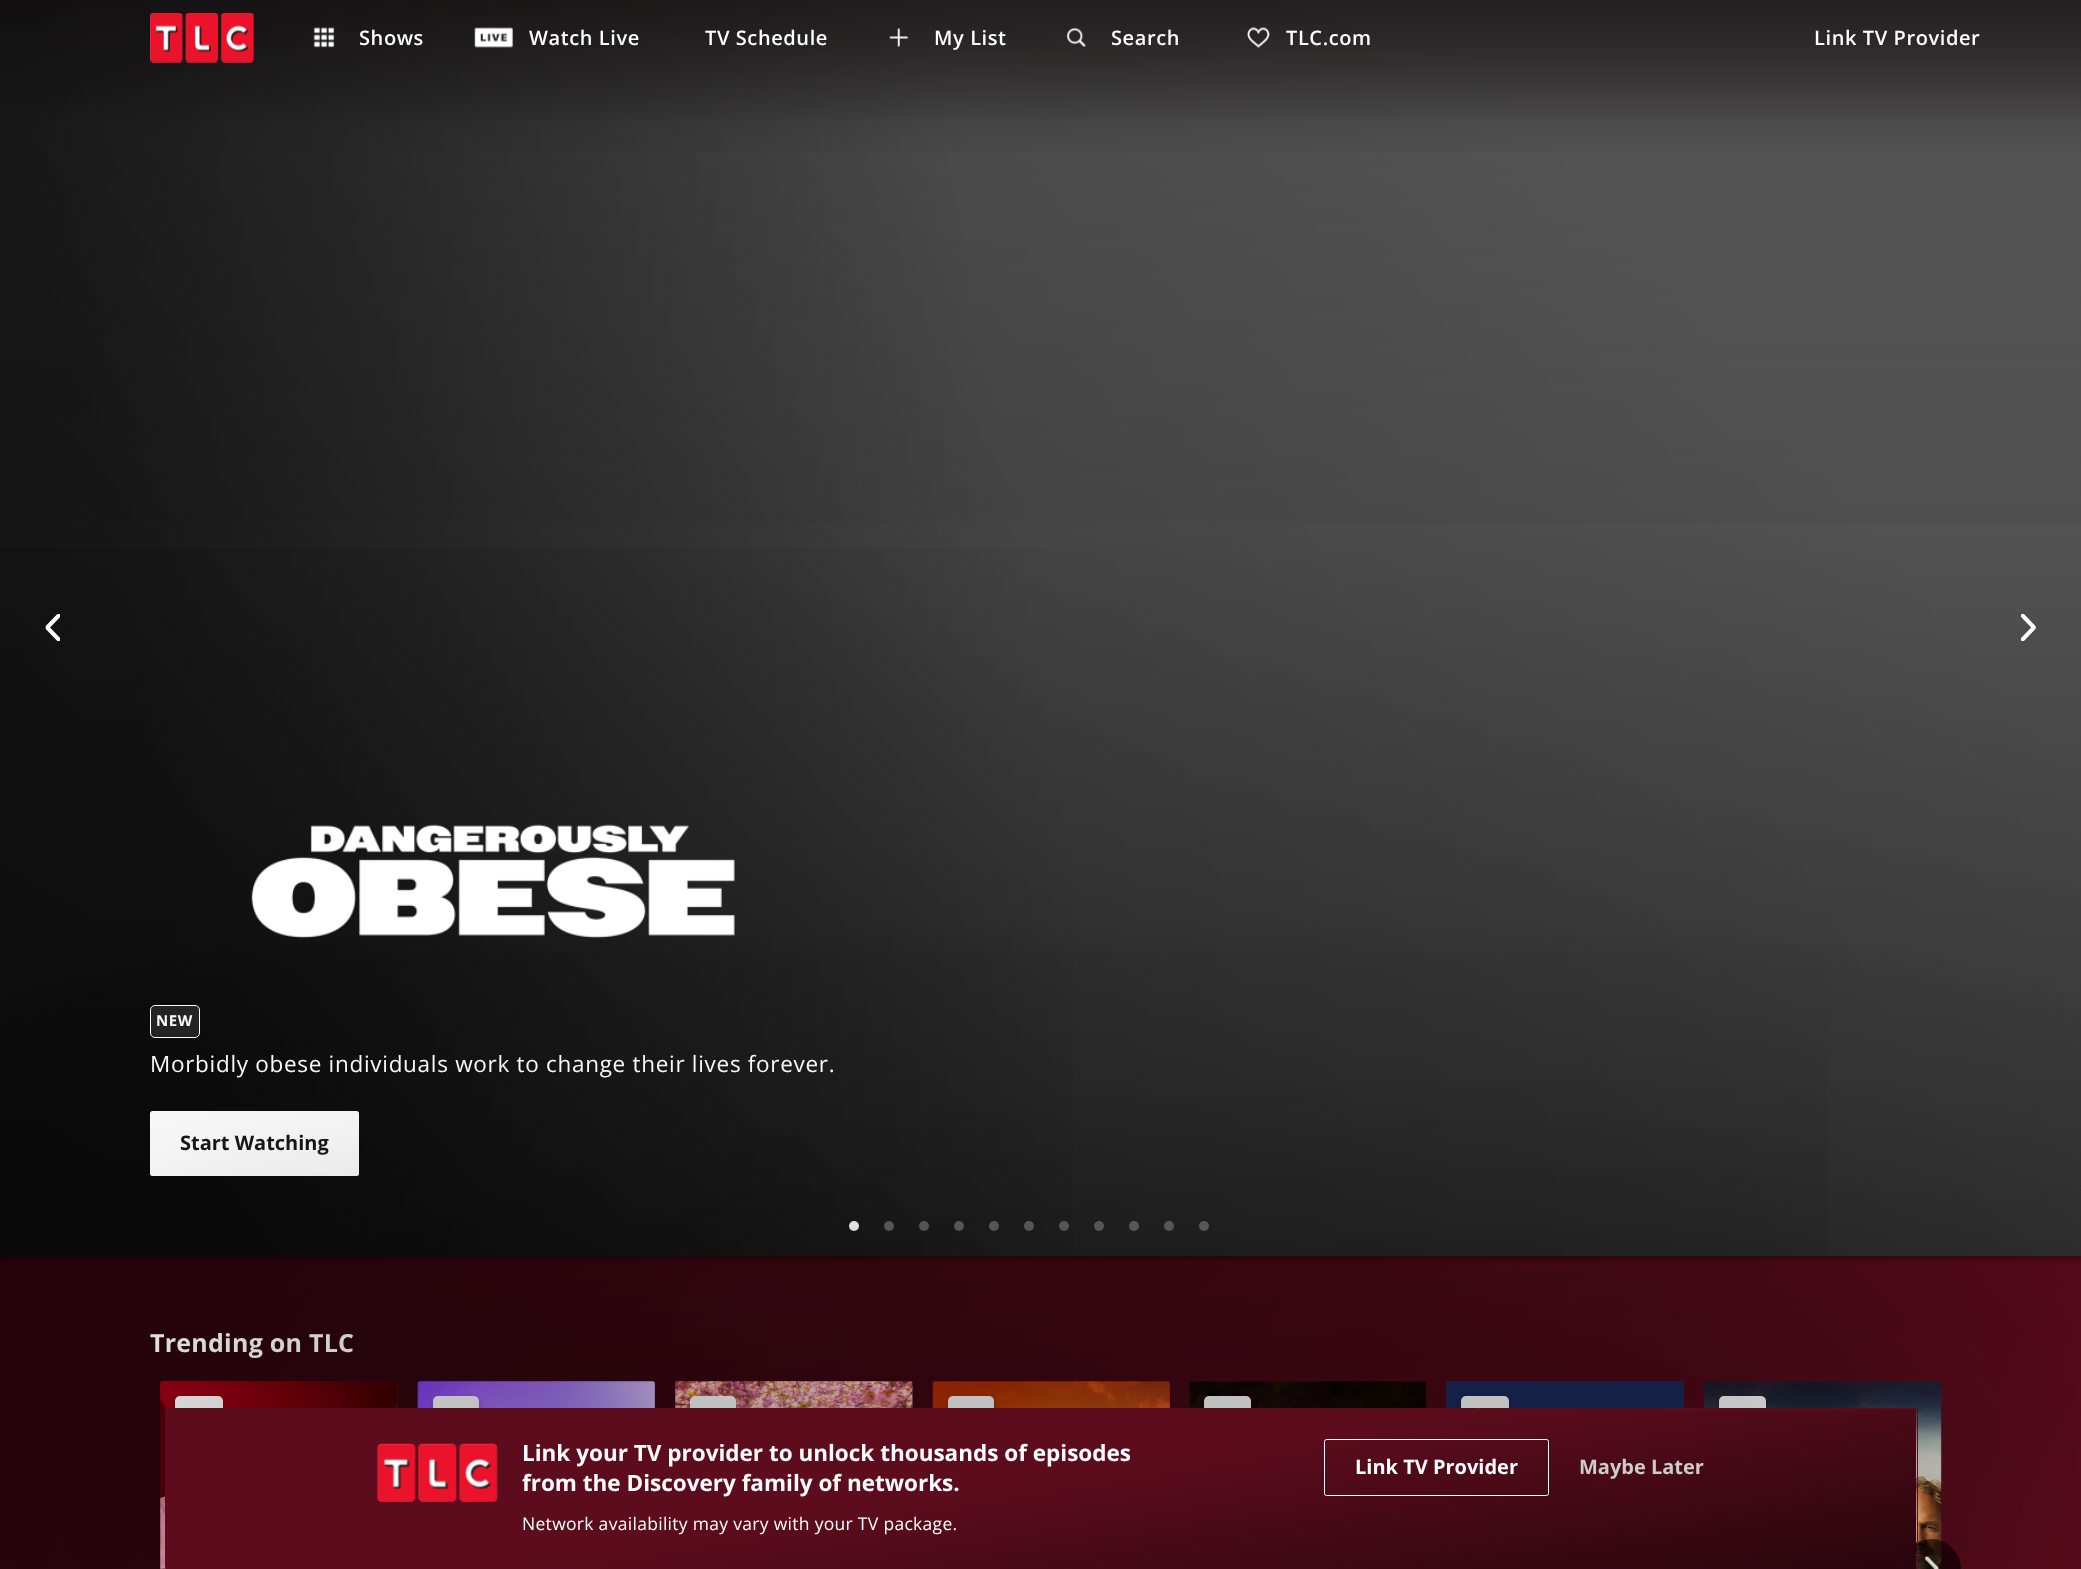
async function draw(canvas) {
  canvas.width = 2081
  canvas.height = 1569
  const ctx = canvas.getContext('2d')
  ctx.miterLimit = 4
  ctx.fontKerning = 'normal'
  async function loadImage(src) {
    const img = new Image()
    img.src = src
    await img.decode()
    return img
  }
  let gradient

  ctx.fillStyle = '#fff'
  ctx.fillRect(0, 0, 2081, 1569)
  gradient = ctx.createLinearGradient(-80, 138, 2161, 1432)
  gradient.addColorStop(0, '#160307')
  gradient.addColorStop(1, '#5c0c1d')
  ctx.fillStyle = gradient
  ctx.fillRect(0, 1256, 2081, 313)
  ctx.fillStyle = '#0000004d'
  ctx.filter = 'blur(2.5px)'
  ctx.beginPath()
  ctx.rect(0, 3, 2081, 1256)
  ctx.fill()
  ctx.filter = 'none'
  gradient = ctx.createLinearGradient(1041, 0, 1041, 1256)
  gradient.addColorStop(0, '#686868')
  gradient.addColorStop(1, '#333')
  ctx.fillStyle = gradient
  ctx.fillRect(0, 0, 2081, 1256)
  gradient = ctx.createLinearGradient(1041, 0, 1041, 1256)
  gradient.addColorStop(0, '#16030799')
  gradient.addColorStop(0.1, '#16030700')
  ctx.fillStyle = gradient
  ctx.fillRect(0, 0, 2081, 120)
  gradient = ctx.createLinearGradient(-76, 825, 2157, 431)
  gradient.addColorStop(0.1, '#00000099')
  gradient.addColorStop(0.5, '#00000000')
  ctx.fillStyle = gradient
  ctx.fillRect(0, 0, 1074, 1256)
  gradient = ctx.createLinearGradient(121, 1400, 1961, -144)
  gradient.addColorStop(0.15, '#0000005c')
  gradient.addColorStop(0.8, '#00000000')
  ctx.fillStyle = gradient
  ctx.fillRect(0, 0, 2081, 1256)
  gradient = ctx.createLinearGradient(1041, 0, 1041, 1256)
  gradient.addColorStop(0, '#00000033')
  gradient.addColorStop(0.5, '#00000000')
  ctx.fillStyle = gradient
  ctx.fillRect(0, 0, 2081, 523)
  gradient = ctx.createLinearGradient(1041, 0, 1041, 200)
  gradient.addColorStop(0, '#18181866')
  gradient.addColorStop(0.15, '#18181861')
  gradient.addColorStop(0.22, '#1818185c')
  gradient.addColorStop(0.29, '#18181854')
  gradient.addColorStop(0.35, '#1818184d')
  gradient.addColorStop(0.41, '#18181842')
  gradient.addColorStop(0.47, '#18181838')
  gradient.addColorStop(0.53, '#1818182e')
  gradient.addColorStop(0.59, '#18181824')
  gradient.addColorStop(0.65, '#1818181a')
  gradient.addColorStop(0.71, '#1818180f')
  gradient.addColorStop(0.78, '#1818180a')
  gradient.addColorStop(0.84, '#18181805')
  gradient.addColorStop(0.91, '#18181800')
  gradient.addColorStop(1, '#18181800')
  ctx.fillStyle = gradient
  ctx.fillRect(0, 0, 2081, 152)
  ctx.drawImage(await loadImage('image0.png'), 150, 13, 104, 50)
  ctx.drawImage(await loadImage('image1.png'), 313, 27, 22, 21)
  ctx.letterSpacing = '0.6px'
  ctx.font = '600 20px Open Sans'
  ctx.fillStyle = '#fff'
  ctx.fillText('Shows', 359, 45)
  ctx.drawImage(await loadImage('image2.png'), 474, 27, 39, 21)
  ctx.fillText('Watch Live', 529, 45)
  ctx.fillText('TV Schedule', 705, 45)
  ctx.drawImage(await loadImage('image3.png'), 889, 28, 20, 19)
  ctx.fillText('My List', 934, 45)
  ctx.drawImage(await loadImage('image4.png'), 1066, 27, 20, 20)
  ctx.fillText('Search', 1111, 45)
  ctx.drawImage(await loadImage('image5.png'), 1247, 27, 23, 21)
  ctx.fillText('TLC.com', 1286, 45)
  ctx.fillText('Link TV Provider', 1814, 45)
  gradient = ctx.createLinearGradient(508, 1550, 1573, -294)
  gradient.addColorStop(0, '#00000033')
  gradient.addColorStop(0.6, '#00000000')
  ctx.fillStyle = gradient
  ctx.fillRect(0, 548, 1827, 708)
  ctx.drawImage(await loadImage('image6.png'), 45, 614, 15, 27)
  ctx.drawImage(await loadImage('image7.png'), 2021, 614, 15, 27)
  ctx.fillStyle = '#fff'
  ctx.beginPath()
  ctx.arc(854, 1226, 5, 0, 2 * Math.PI)
  ctx.fill()
  ctx.fillStyle = '#616161'
  ctx.beginPath()
  ctx.arc(889, 1226, 5, 0, 2 * Math.PI)
  ctx.fill()
  ctx.beginPath()
  ctx.arc(924, 1226, 5, 0, 2 * Math.PI)
  ctx.fill()
  ctx.fillStyle = '#626262'
  ctx.beginPath()
  ctx.arc(959, 1226, 5, 0, 2 * Math.PI)
  ctx.fill()
  ctx.beginPath()
  ctx.arc(994, 1226, 5, 0, 2 * Math.PI)
  ctx.fill()
  ctx.fillStyle = '#636363'
  ctx.beginPath()
  ctx.arc(1029, 1226, 5, 0, 2 * Math.PI)
  ctx.fill()
  ctx.beginPath()
  ctx.arc(1064, 1226, 5, 0, 2 * Math.PI)
  ctx.fill()
  ctx.fillStyle = '#646464'
  ctx.beginPath()
  ctx.arc(1099, 1226, 5, 0, 2 * Math.PI)
  ctx.fill()
  ctx.fillStyle = '#656565'
  ctx.beginPath()
  ctx.arc(1134, 1226, 5, 0, 2 * Math.PI)
  ctx.fill()
  ctx.beginPath()
  ctx.arc(1169, 1226, 5, 0, 2 * Math.PI)
  ctx.fill()
  ctx.beginPath()
  ctx.arc(1204, 1226, 5, 0, 2 * Math.PI)
  ctx.fill()
  ctx.drawImage(await loadImage('image8.png'), 251, 824, 484, 114)
  ctx.fillStyle = '#ffffff1a'
  ctx.beginPath()
  ctx.roundRect(150.5, 1005.5, 49, 32, 4.5)
  ctx.fill()
  ctx.strokeStyle = '#fff'
  ctx.stroke()
  ctx.font = 'bold 15px Open Sans'
  ctx.fillStyle = '#fff'
  ctx.fillText('NEW', 156, 1026)
  ctx.letterSpacing = '0.7px'
  ctx.font = '22.5px Open Sans'
  ctx.fillText('Morbidly obese individuals work to change their lives forever.', 150, 1072)
  ctx.beginPath()
  ctx.roundRect(150, 1111, 209, 65, 2.5)
  ctx.fill()
  ctx.letterSpacing = '0px'
  ctx.font = 'bold 20px Open Sans'
  ctx.fillStyle = '#181818'
  ctx.fillText('Start Watching', 180, 1150)
  ctx.letterSpacing = '0.25px'
  ctx.font = 'bold 25px Open Sans'
  ctx.fillStyle = '#fff'
  ctx.fillText('Trending on TLC', 150, 1352)
  ctx.fillStyle = '#e5e5e51a'
  ctx.beginPath()
  ctx.roundRect(160, 1381, 238, 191, 2.5)
  ctx.fill()
  ctx.drawImage(await loadImage('image9.png'), 160, 1381, 238, 188)
  ctx.fillStyle = '#00000040'
  ctx.filter = 'blur(2.5px)'
  ctx.beginPath()
  ctx.roundRect(175, 1399, 48, 30, 5)
  ctx.fill()
  ctx.filter = 'none'
  ctx.fillStyle = '#fff'
  ctx.beginPath()
  ctx.roundRect(175, 1396, 48, 30, 5)
  ctx.fill()
  ctx.fillStyle = '#e5e5e51a'
  ctx.beginPath()
  ctx.roundRect(418, 1381, 237, 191, 2.5)
  ctx.fill()
  ctx.drawImage(await loadImage('image10.png'), 417, 1381, 238, 27)
  ctx.fillStyle = '#00000040'
  ctx.filter = 'blur(2.5px)'
  ctx.beginPath()
  ctx.roundRect(433, 1399, 46, 30, 5)
  ctx.fill()
  ctx.filter = 'none'
  ctx.fillStyle = '#fff'
  ctx.beginPath()
  ctx.roundRect(433, 1396, 46, 30, 5)
  ctx.fill()
  ctx.fillStyle = '#e5e5e51a'
  ctx.beginPath()
  ctx.roundRect(675, 1381, 238, 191, 2.5)
  ctx.fill()
  ctx.drawImage(await loadImage('image11.png'), 675, 1381, 238, 27)
  ctx.fillStyle = '#00000040'
  ctx.filter = 'blur(2.5px)'
  ctx.beginPath()
  ctx.roundRect(690, 1399, 46, 30, 5)
  ctx.fill()
  ctx.filter = 'none'
  ctx.fillStyle = '#fff'
  ctx.beginPath()
  ctx.roundRect(690, 1396, 46, 30, 5)
  ctx.fill()
  ctx.drawImage(await loadImage('image12.png'), 932, 1381, 238, 27)
  ctx.fillStyle = '#00000040'
  ctx.filter = 'blur(2.5px)'
  ctx.beginPath()
  ctx.roundRect(948, 1399, 46, 30, 5)
  ctx.fill()
  ctx.filter = 'none'
  ctx.fillStyle = '#fff'
  ctx.beginPath()
  ctx.roundRect(948, 1396, 46, 30, 5)
  ctx.fill()
  ctx.fillStyle = '#e5e5e51a'
  ctx.beginPath()
  ctx.roundRect(1189, 1381, 237, 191, 2.5)
  ctx.fill()
  ctx.drawImage(await loadImage('image13.png'), 1189, 1381, 238, 27)
  ctx.fillStyle = '#00000040'
  ctx.filter = 'blur(2.5px)'
  ctx.beginPath()
  ctx.roundRect(1204, 1399, 47, 30, 5)
  ctx.fill()
  ctx.filter = 'none'
  ctx.fillStyle = '#fff'
  ctx.beginPath()
  ctx.roundRect(1204, 1396, 47, 30, 5)
  ctx.fill()
  ctx.fillStyle = '#e5e5e51a'
  ctx.beginPath()
  ctx.roundRect(1446, 1381, 238, 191, 2.5)
  ctx.fill()
  ctx.drawImage(await loadImage('image14.png'), 1446, 1381, 238, 27)
  ctx.fillStyle = '#00000040'
  ctx.filter = 'blur(2.5px)'
  ctx.beginPath()
  ctx.roundRect(1461, 1399, 48, 30, 5)
  ctx.fill()
  ctx.filter = 'none'
  ctx.fillStyle = '#fff'
  ctx.beginPath()
  ctx.roundRect(1461, 1396, 48, 30, 5)
  ctx.fill()
  ctx.fillStyle = '#e5e5e51a'
  ctx.beginPath()
  ctx.roundRect(1704, 1381, 237, 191, 2.5)
  ctx.fill()
  ctx.drawImage(await loadImage('image15.png'), 1704, 1381, 238, 188)
  ctx.fillStyle = '#00000040'
  ctx.filter = 'blur(2.5px)'
  ctx.beginPath()
  ctx.roundRect(1719, 1399, 47, 30, 5)
  ctx.fill()
  ctx.filter = 'none'
  ctx.fillStyle = '#fff'
  ctx.beginPath()
  ctx.roundRect(1719, 1396, 47, 30, 5)
  ctx.fill()
  ctx.fillStyle = '#00000099'
  ctx.beginPath()
  ctx.arc(1931, 1569, 30, 0, 2 * Math.PI)
  ctx.fill()
  ctx.drawImage(await loadImage('image16.png'), 1925, 1556, 15, 13)
  ctx.fillStyle = '#00000033'
  ctx.filter = 'blur(187.5px)'
  ctx.beginPath()
  ctx.roundRect(103, 1345, 1877, 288, 65)
  ctx.fill()
  ctx.filter = 'none'
  ctx.fillStyle = '#0000004d'
  ctx.filter = 'blur(187.5px)'
  ctx.beginPath()
  ctx.roundRect(103, 1345, 1877, 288, 65)
  ctx.fill()
  ctx.filter = 'none'
  gradient = ctx.createLinearGradient(1007, 1276, 1087, 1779)
  gradient.addColorStop(0.4, '#5c0c1d')
  gradient.addColorStop(1, '#160307')
  ctx.fillStyle = gradient
  ctx.fillRect(166, 1409, 1750, 160)
  ctx.beginPath()
  ctx.roundRect(165.5, 1408.5, 1752, 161, 2)
  ctx.strokeStyle = '#5c0c1d'
  ctx.stroke()
  ctx.drawImage(await loadImage('image17.png'), 377, 1443, 121, 59)
  ctx.letterSpacing = '0px'
  ctx.font = 'bold 22.5px Open Sans'
  ctx.fillStyle = '#fff'
  ctx.fillText('Link your TV provider to unlock thousands of episodes', 522, 1461)
  ctx.fillText('from the Discovery family of networks.', 522, 1491)
  ctx.letterSpacing = '0.3px'
  ctx.font = '17.5px Open Sans'
  ctx.fillText('Network availability may vary with your TV package.', 522, 1530)
  ctx.beginPath()
  ctx.roundRect(1324.5, 1439.5, 224, 56, 2)
  ctx.strokeStyle = '#fff'
  ctx.stroke()
  ctx.letterSpacing = '0px'
  ctx.font = 'bold 20px Open Sans'
  ctx.fillText('Link TV Provider', 1355, 1474)
  ctx.fillStyle = '#ccc'
  ctx.fillText('Maybe Later', 1579, 1474)
}

draw(document.querySelector('canvas'))
